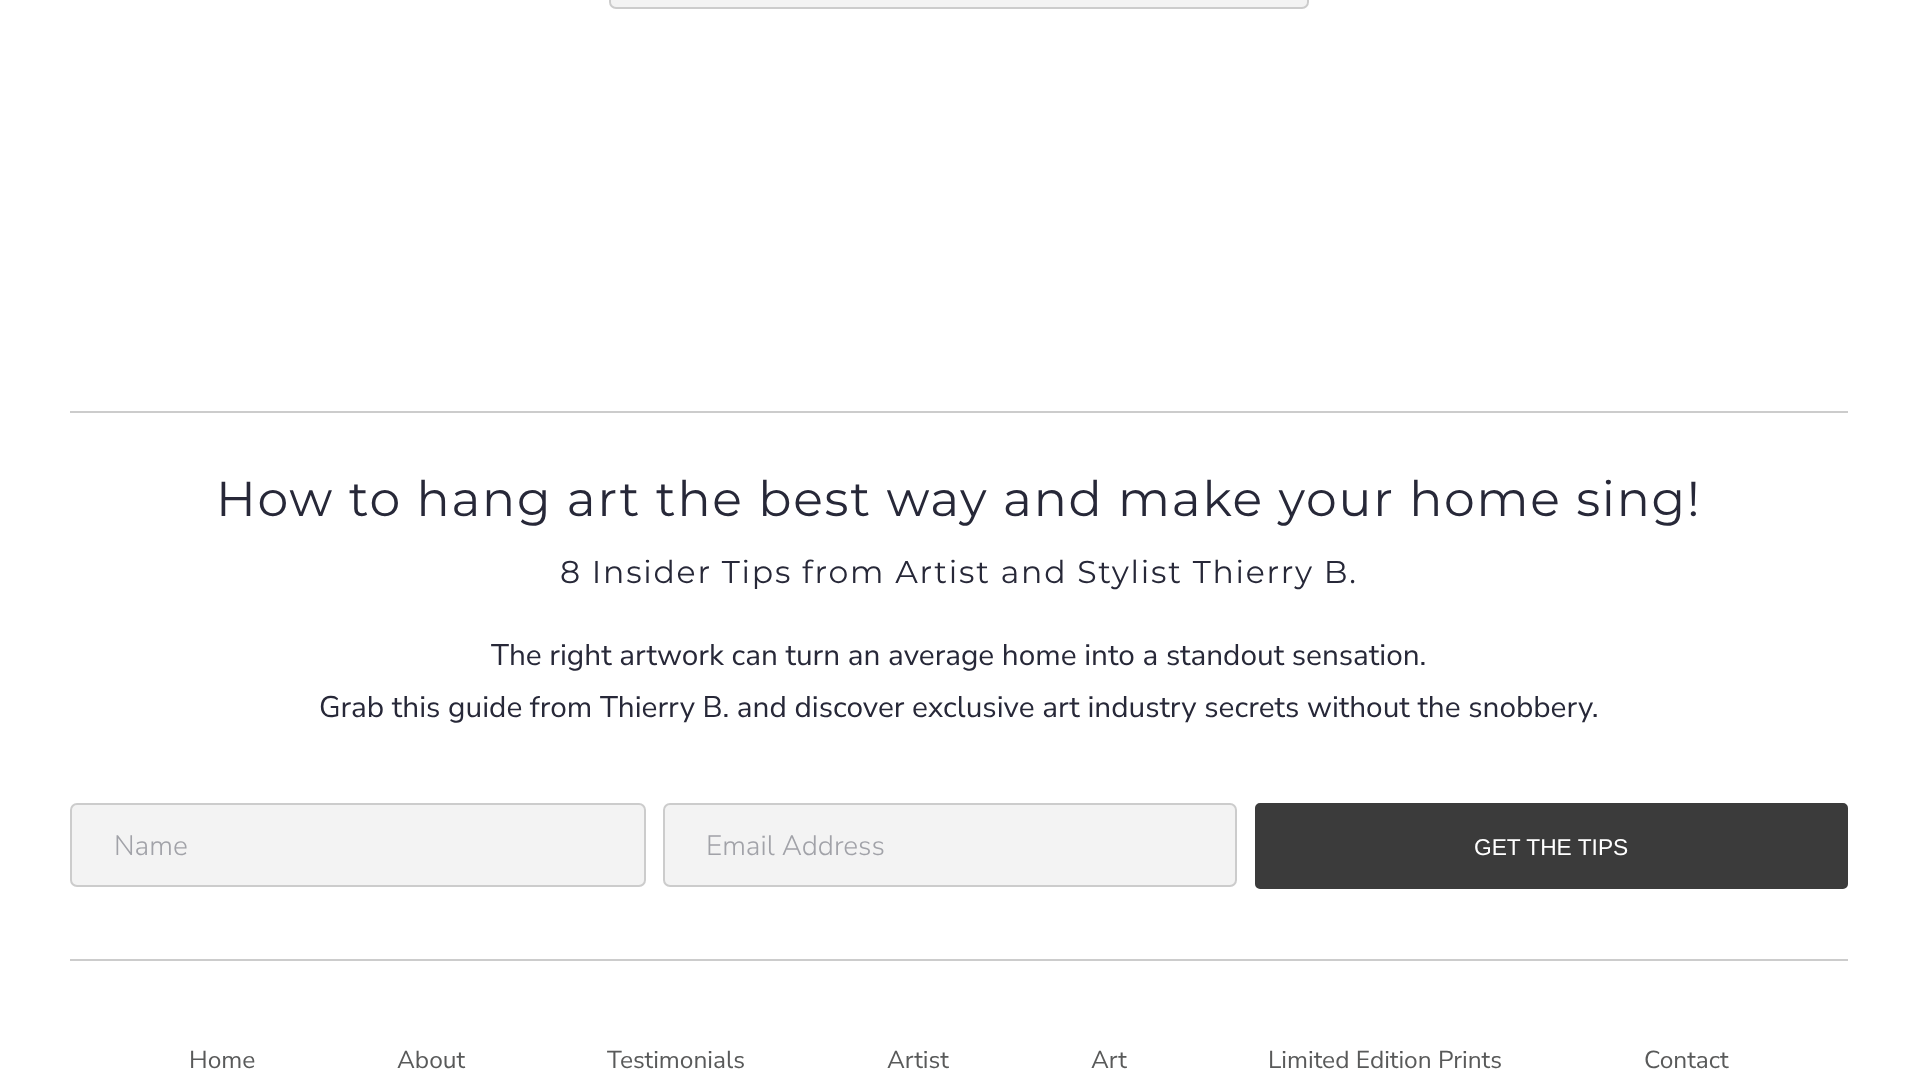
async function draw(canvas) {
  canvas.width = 1917
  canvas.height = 1071
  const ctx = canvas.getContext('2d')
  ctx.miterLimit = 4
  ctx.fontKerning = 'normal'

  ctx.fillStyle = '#fff'
  ctx.fillRect(0, 0, 1917, 1071)
  ctx.fillStyle = '#f3f3f3'
  ctx.beginPath()
  ctx.roundRect(611, -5, 696, 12, 5)
  ctx.fill()
  ctx.beginPath()
  ctx.roundRect(610, -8, 698, 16, 6)
  ctx.strokeStyle = '#ccc'
  ctx.lineWidth = 2
  ctx.stroke()
  ctx.fillStyle = '#ccc'
  ctx.fillRect(70, 411, 1778, 2)
  ctx.letterSpacing = '1.75px'
  ctx.font = '100 49px Montserrat'
  ctx.fillStyle = '#272838'
  ctx.fillText('How to hang art the best way and make your home sing!', 216, 516)
  ctx.font = '100 31.5px Montserrat'
  ctx.fillText('8 Insider Tips from Artist and Stylist Thierry B.', 560, 583)
  ctx.letterSpacing = '0px'
  ctx.font = '29.75px Nunito Sans'
  ctx.fillText('The right artwork can turn an average home into a standout sensation.', 491, 665)
  ctx.fillText('Grab this guide from Thierry B. and discover exclusive art industry secrets without the snobbery.', 319, 717)
  ctx.fillStyle = '#f3f3f3'
  ctx.beginPath()
  ctx.roundRect(71, 804, 574, 82, 6)
  ctx.fill()
  ctx.stroke()
  ctx.font = '300 28px Nunito Sans'
  ctx.fillStyle = '#a1a2a8'
  ctx.fillText('Name', 114, 855)
  ctx.fillStyle = '#f3f3f3'
  ctx.beginPath()
  ctx.roundRect(664, 804, 572, 82, 6)
  ctx.fill()
  ctx.stroke()
  ctx.fillStyle = '#a1a2a8'
  ctx.fillText('Email Address', 706, 855)
  ctx.fillStyle = '#3b3b3b'
  ctx.beginPath()
  ctx.roundRect(1256, 804, 591, 84, 4)
  ctx.fill()
  ctx.strokeStyle = '#3b3b3b'
  ctx.stroke()
  ctx.font = '22.75px Liberation Sans'
  ctx.fillStyle = '#fff'
  ctx.fillText('GET THE TIPS', 1474, 855)
  ctx.fillStyle = '#ccc'
  ctx.fillRect(70, 959, 1778, 2)
  ctx.font = '24.5px Nunito Sans'
  ctx.fillStyle = '#595a5a'
  ctx.fillText('Home', 189, 1068)
  ctx.fillText('About', 397, 1068)
  ctx.fillText('Testimonials', 607, 1068)
  ctx.fillText('Artist', 887, 1068)
  ctx.fillText('Art', 1091, 1068)
  ctx.fillText('Limited Edition Prints', 1268, 1068)
  ctx.fillText('Contact', 1644, 1068)
}

draw(document.querySelector('canvas'))
